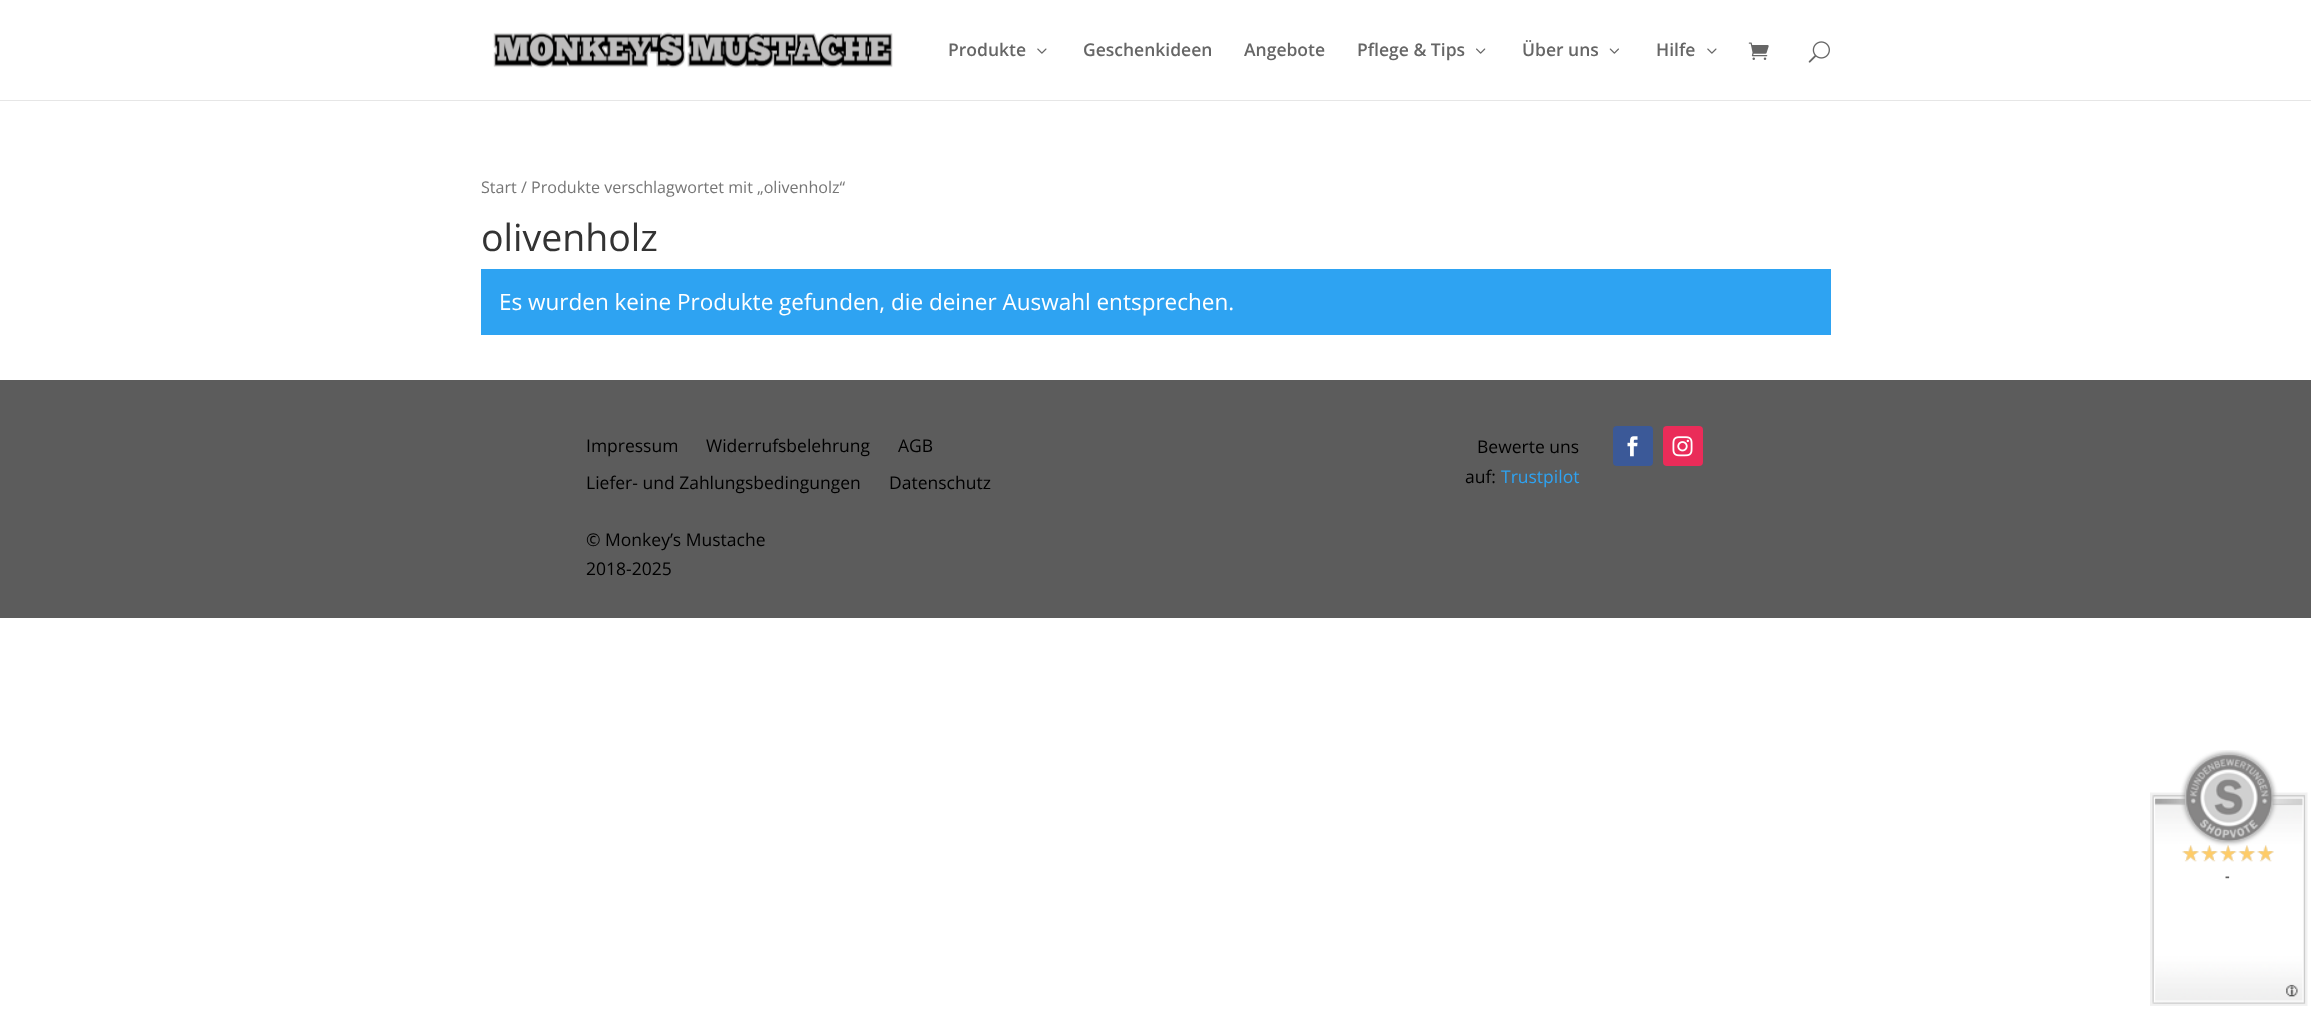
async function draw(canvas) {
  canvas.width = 2311
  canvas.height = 1012
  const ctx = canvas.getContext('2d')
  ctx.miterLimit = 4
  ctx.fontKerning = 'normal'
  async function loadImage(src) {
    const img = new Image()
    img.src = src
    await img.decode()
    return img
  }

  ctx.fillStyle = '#fff'
  ctx.fillRect(0, 0, 2311, 1012)
  ctx.fillStyle = '#e6e6e6'
  ctx.fillRect(0, 100, 2311, 1)
  ctx.drawImage(await loadImage('image0.png'), 493, 32, 400, 36)
  ctx.font = '600 17.5px Open Sans'
  ctx.fillStyle = '#666'
  ctx.fillText('Produkte', 948, 56)
  ctx.drawImage(await loadImage('image1.png'), 1037, 48, 10, 6)
  ctx.fillText('Geschenkideen', 1083, 56)
  ctx.fillText('Angebote', 1244, 56)
  ctx.fillText('Pflege & Tips', 1357, 56)
  ctx.drawImage(await loadImage('image2.png'), 1476, 48, 10, 6)
  ctx.fillText('Über uns', 1522, 56)
  ctx.drawImage(await loadImage('image3.png'), 1609, 48, 10, 6)
  ctx.fillText('Hilfe', 1656, 56)
  ctx.drawImage(await loadImage('image1.png'), 1707, 48, 10, 6)
  ctx.drawImage(await loadImage('image4.png'), 1748, 42, 21, 18)
  ctx.drawImage(await loadImage('image5.png'), 1808, 41, 22, 22)
  ctx.font = '16.1px Open Sans'
  ctx.fillStyle = '#767676'
  ctx.fillText('Start / Produkte verschlagwortet mit „olivenholz“', 481, 193)
  ctx.font = '37.5px Open Sans'
  ctx.fillStyle = '#333'
  ctx.fillText('olivenholz', 481, 251)
  ctx.fillStyle = '#2ea3f2'
  ctx.fillRect(481, 269, 1350, 66)
  ctx.font = '22.5px Open Sans'
  ctx.fillStyle = '#fff'
  ctx.fillText('Es wurden keine Produkte gefunden, die deiner Auswahl entsprechen.', 499, 310)
  ctx.fillStyle = '#5c5c5c'
  ctx.fillRect(0, 380, 2311, 238)
  ctx.font = '17.5px Open Sans'
  ctx.fillStyle = '#000'
  ctx.fillText('Impressum', 586, 452)
  ctx.fillText('Widerrufsbelehrung', 706, 452)
  ctx.fillText('AGB', 898, 452)
  ctx.fillText('Liefer- und Zahlungsbedingungen', 586, 489)
  ctx.fillText('Datenschutz', 889, 489)
  ctx.fillText('© Monkey’s Mustache', 586, 546)
  ctx.fillText('2018-2025', 586, 575)
  ctx.fillText('Bewerte uns', 1477, 453)
  ctx.fillText('auf:', 1465, 483)
  ctx.fillStyle = '#2ea3f2'
  ctx.fillText('Trustpilot', 1501, 483)
  ctx.fillStyle = '#3b5998'
  ctx.beginPath()
  ctx.roundRect(1613, 426, 40, 40, 4)
  ctx.fill()
  ctx.drawImage(await loadImage('image6.png'), 1627, 436, 11, 21)
  ctx.fillStyle = '#ea2c59'
  ctx.beginPath()
  ctx.roundRect(1663, 426, 40, 40, 4)
  ctx.fill()
  ctx.drawImage(await loadImage('image7.png'), 1672, 436, 21, 21)
  ctx.drawImage(await loadImage('image8.png'), 2150, 750, 158, 256)
  ctx.drawImage(await loadImage('image9.png'), 2182, 845, 92, 17)
  ctx.font = 'bold 14px Liberation Sans'
  ctx.fillStyle = '#606060'
  ctx.fillText('-', 2225, 881)
}

draw(document.querySelector('canvas'))
